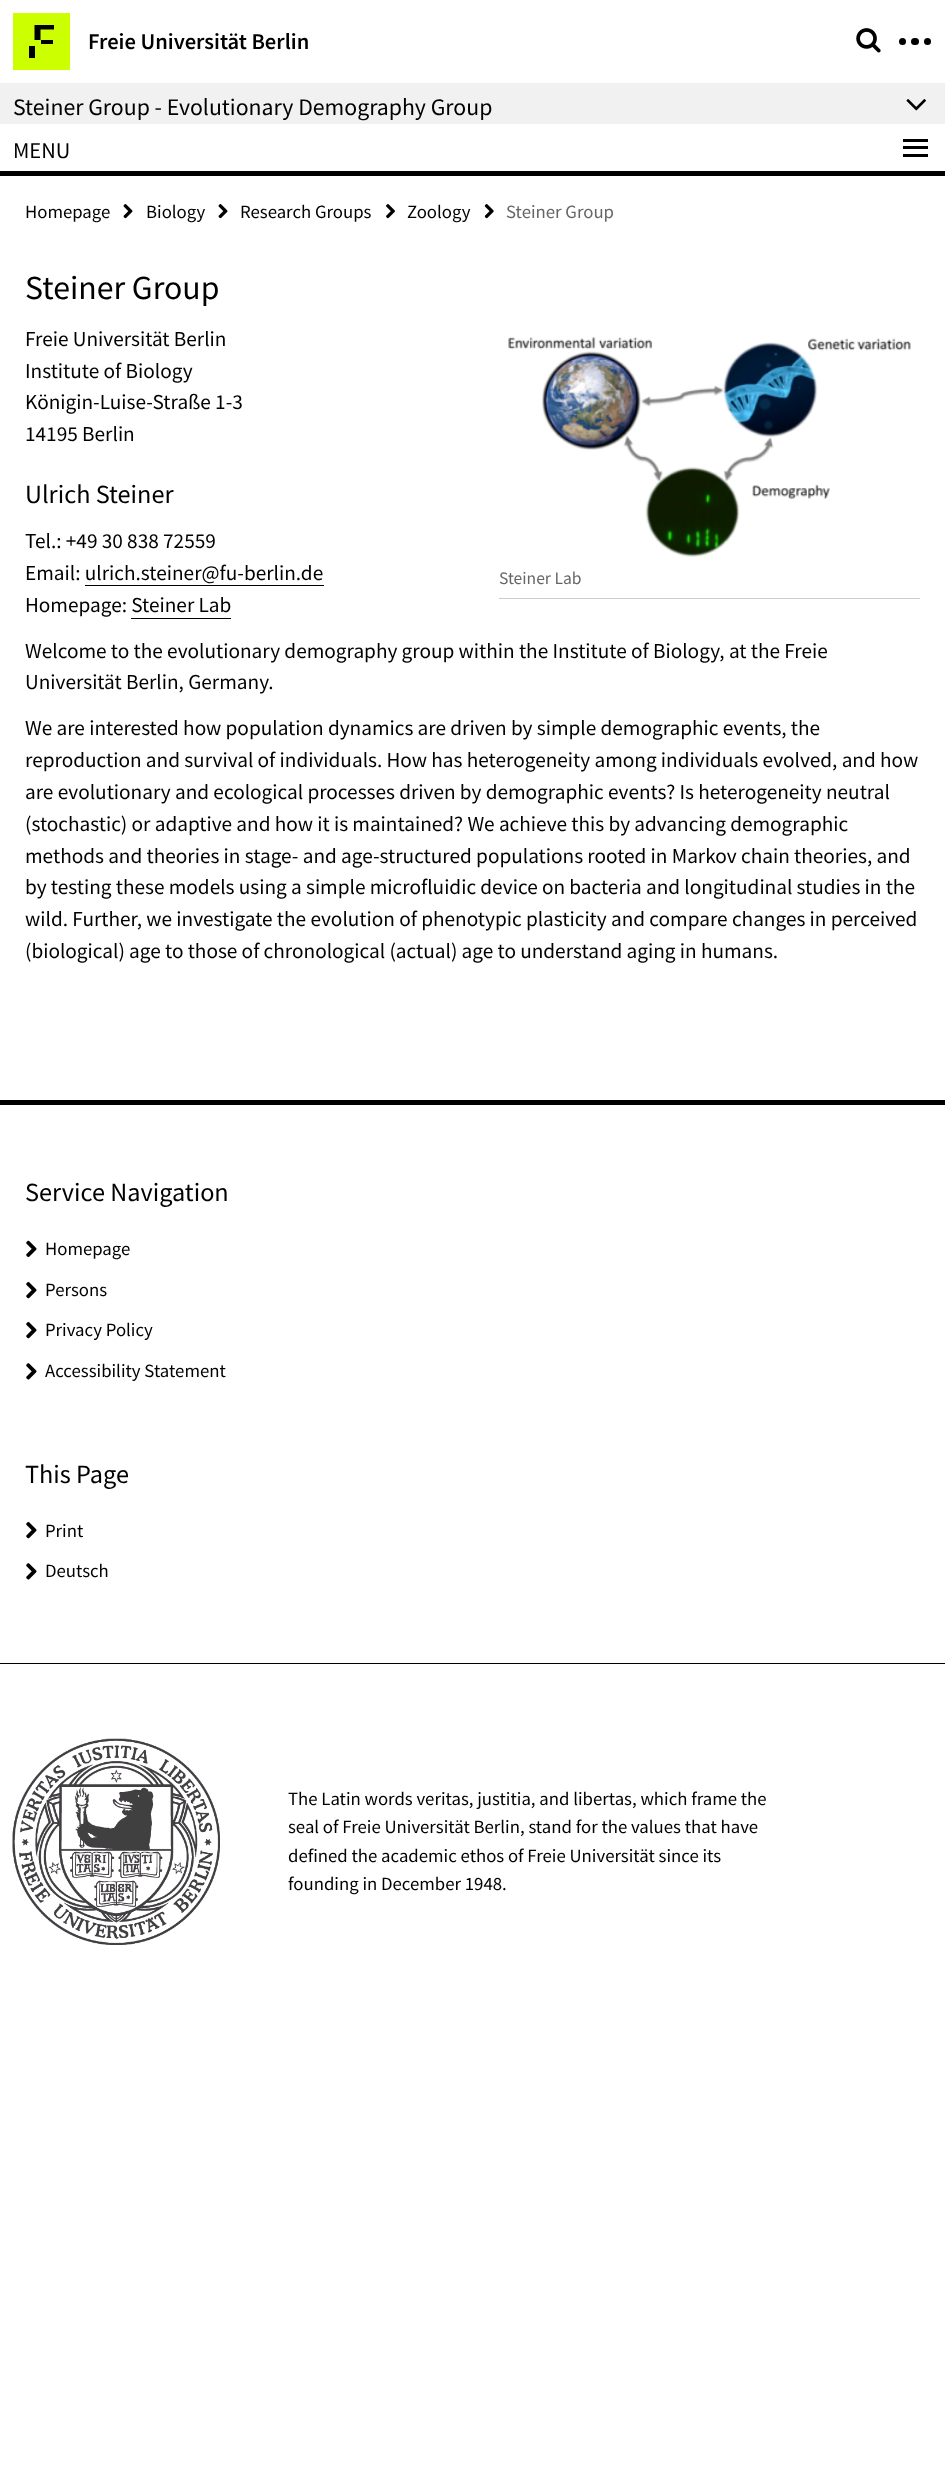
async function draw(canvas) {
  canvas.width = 945
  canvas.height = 2468
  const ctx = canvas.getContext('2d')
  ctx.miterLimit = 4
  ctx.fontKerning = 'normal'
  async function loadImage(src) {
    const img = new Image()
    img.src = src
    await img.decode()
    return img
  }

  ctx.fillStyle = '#fff'
  ctx.fillRect(0, 0, 945, 2468)
  ctx.fillStyle = '#cf0'
  ctx.fillRect(13, 13, 57, 57)
  ctx.fillStyle = '#000'
  ctx.beginPath()
  ctx.moveTo(34.5, 25)
  ctx.lineTo(54, 25)
  ctx.lineTo(54, 29.5)
  ctx.lineTo(40.5, 29.5)
  ctx.lineTo(40.5, 40)
  ctx.lineTo(34.5, 40)
  ctx.closePath()
  ctx.fill()
  ctx.fillRect(41, 40, 12, 4)
  ctx.fillRect(29, 46, 6, 12)
  ctx.font = '600 22.5px Source Sans Pro'
  ctx.fillText('Freie Universität Berlin', 88, 49)
  ctx.drawImage(await loadImage('image0.png'), 856, 28, 25, 25)
  ctx.beginPath()
  ctx.arc(902.5, 41.5, 3.5, 0, 2 * Math.PI)
  ctx.fill()
  ctx.beginPath()
  ctx.roundRect(911, 38, 8, 7, 3.5)
  ctx.fill()
  ctx.beginPath()
  ctx.arc(927.5, 41.5, 3.5, 0, 2 * Math.PI)
  ctx.fill()
  ctx.fillStyle = '#f1f1f1'
  ctx.fillRect(0, 83, 945, 41)
  ctx.font = '23.75px Source Sans Pro'
  ctx.fillStyle = '#000'
  ctx.fillText('Steiner Group - Evolutionary Demography Group', 13, 115)
  ctx.drawImage(await loadImage('image1.png'), 906, 99, 20, 12)
  ctx.fillRect(0, 171, 945, 5)
  ctx.font = '22.5px Source Sans Pro'
  ctx.fillText('MENU', 13, 158)
  ctx.fillRect(903, 139, 25, 3)
  ctx.fillRect(903, 146, 25, 3)
  ctx.fillRect(903, 154, 25, 3)
  ctx.font = '18.75px Source Sans Pro'
  ctx.fillText('Homepage', 25, 218)
  ctx.drawImage(await loadImage('image2.png'), 123, 204, 10, 15)
  ctx.fillText('Biology', 146, 218)
  ctx.drawImage(await loadImage('image2.png'), 218, 204, 10, 15)
  ctx.fillText('Research Groups', 240, 218)
  ctx.drawImage(await loadImage('image3.png'), 386, 204, 9, 15)
  ctx.fillText('Zoology', 407, 218)
  ctx.drawImage(await loadImage('image4.png'), 484, 204, 10, 15)
  ctx.fillStyle = '#666'
  ctx.fillText('Steiner Group', 506, 218)
  ctx.font = '33.75px Source Sans Pro'
  ctx.fillStyle = '#000'
  ctx.fillText('Steiner Group', 25, 299)
  ctx.font = '21.25px Source Sans Pro'
  ctx.fillText('Freie Universität Berlin', 25, 346)
  ctx.fillText('Institute of Biology', 25, 378)
  ctx.fillText('Königin-Luise-Straße 1-3', 25, 409)
  ctx.fillText('14195 Berlin', 25, 441)
  ctx.font = '26.25px Source Sans Pro'
  ctx.fillText('Ulrich Steiner', 25, 503)
  ctx.font = '21.25px Source Sans Pro'
  ctx.fillText('Tel.: +49 30 838 72559', 25, 548)
  ctx.fillText('Email: ulrich.steiner@fu-berlin.de', 25, 580)
  ctx.fillRect(85, 585, 239, 1)
  ctx.fillText('Homepage: Steiner Lab', 25, 612)
  ctx.fillRect(131, 618, 100, 1)
  ctx.drawImage(await loadImage('image5.png'), 508, 337, 403, 220)
  ctx.fillStyle = '#ccc'
  ctx.fillRect(499, 598, 421, 1)
  ctx.font = '17.5px Source Sans Pro'
  ctx.fillStyle = '#666'
  ctx.fillText('Steiner Lab', 499, 584)
  ctx.font = '21.25px Source Sans Pro'
  ctx.fillStyle = '#000'
  ctx.fillText('Welcome to the evolutionary demography group within the Institute of Biology, at the Freie', 25, 658)
  ctx.fillText('Universität Berlin, Germany.', 25, 689)
  ctx.fillText('We are interested how population dynamics are driven by simple demographic events, the', 25, 735)
  ctx.fillText('reproduction and survival of individuals. How has heterogeneity among individuals evolved, and how', 25, 767)
  ctx.fillText('are evolutionary and ecological processes driven by demographic events? Is heterogeneity neutral', 25, 799)
  ctx.fillText('(stochastic) or adaptive and how it is maintained? We achieve this by advancing demographic', 25, 831)
  ctx.fillText('methods and theories in stage- and age-structured populations rooted in Markov chain theories, and', 25, 863)
  ctx.fillText('by testing these models using a simple microfluidic device on bacteria and longitudinal studies in the', 25, 894)
  ctx.fillText('wild. Further, we investigate the evolution of phenotypic plasticity and compare changes in perceived', 25, 926)
  ctx.fillText('(biological) age to those of chronological (actual) age to understand aging in humans.', 25, 958)
  ctx.fillRect(0, 1100, 945, 5)
  ctx.fillRect(0, 1663, 945, 1)
  ctx.font = '26.25px Source Sans Pro'
  ctx.fillText('Service Navigation', 25, 1201)
  ctx.drawImage(await loadImage('image6.png'), 26, 1240, 11, 17)
  ctx.font = '18.75px Source Sans Pro'
  ctx.fillText('Homepage', 45, 1255)
  ctx.drawImage(await loadImage('image7.png'), 26, 1282, 11, 17)
  ctx.fillText('Persons', 45, 1296)
  ctx.drawImage(await loadImage('image7.png'), 26, 1322, 11, 17)
  ctx.fillText('Privacy Policy', 45, 1336)
  ctx.drawImage(await loadImage('image8.png'), 26, 1363, 11, 17)
  ctx.fillText('Accessibility Statement', 45, 1377)
  ctx.font = '26.25px Source Sans Pro'
  ctx.fillText('This Page', 25, 1483)
  ctx.drawImage(await loadImage('image7.png'), 26, 1522, 11, 17)
  ctx.font = '18.75px Source Sans Pro'
  ctx.fillText('Print', 45, 1537)
  ctx.drawImage(await loadImage('image8.png'), 26, 1563, 11, 17)
  ctx.fillText('Deutsch', 45, 1577)
  ctx.drawImage(await loadImage('image9.png'), 12, 1738, 208, 207)
  ctx.fillText('The Latin words veritas, justitia, and libertas, which frame the', 288, 1805)
  ctx.fillText('seal of Freie Universität Berlin, stand for the values that have', 288, 1833)
  ctx.fillText('defined the academic ethos of Freie Universität since its', 288, 1862)
  ctx.fillText('founding in December 1948.', 288, 1890)
}

draw(document.querySelector('canvas'))
